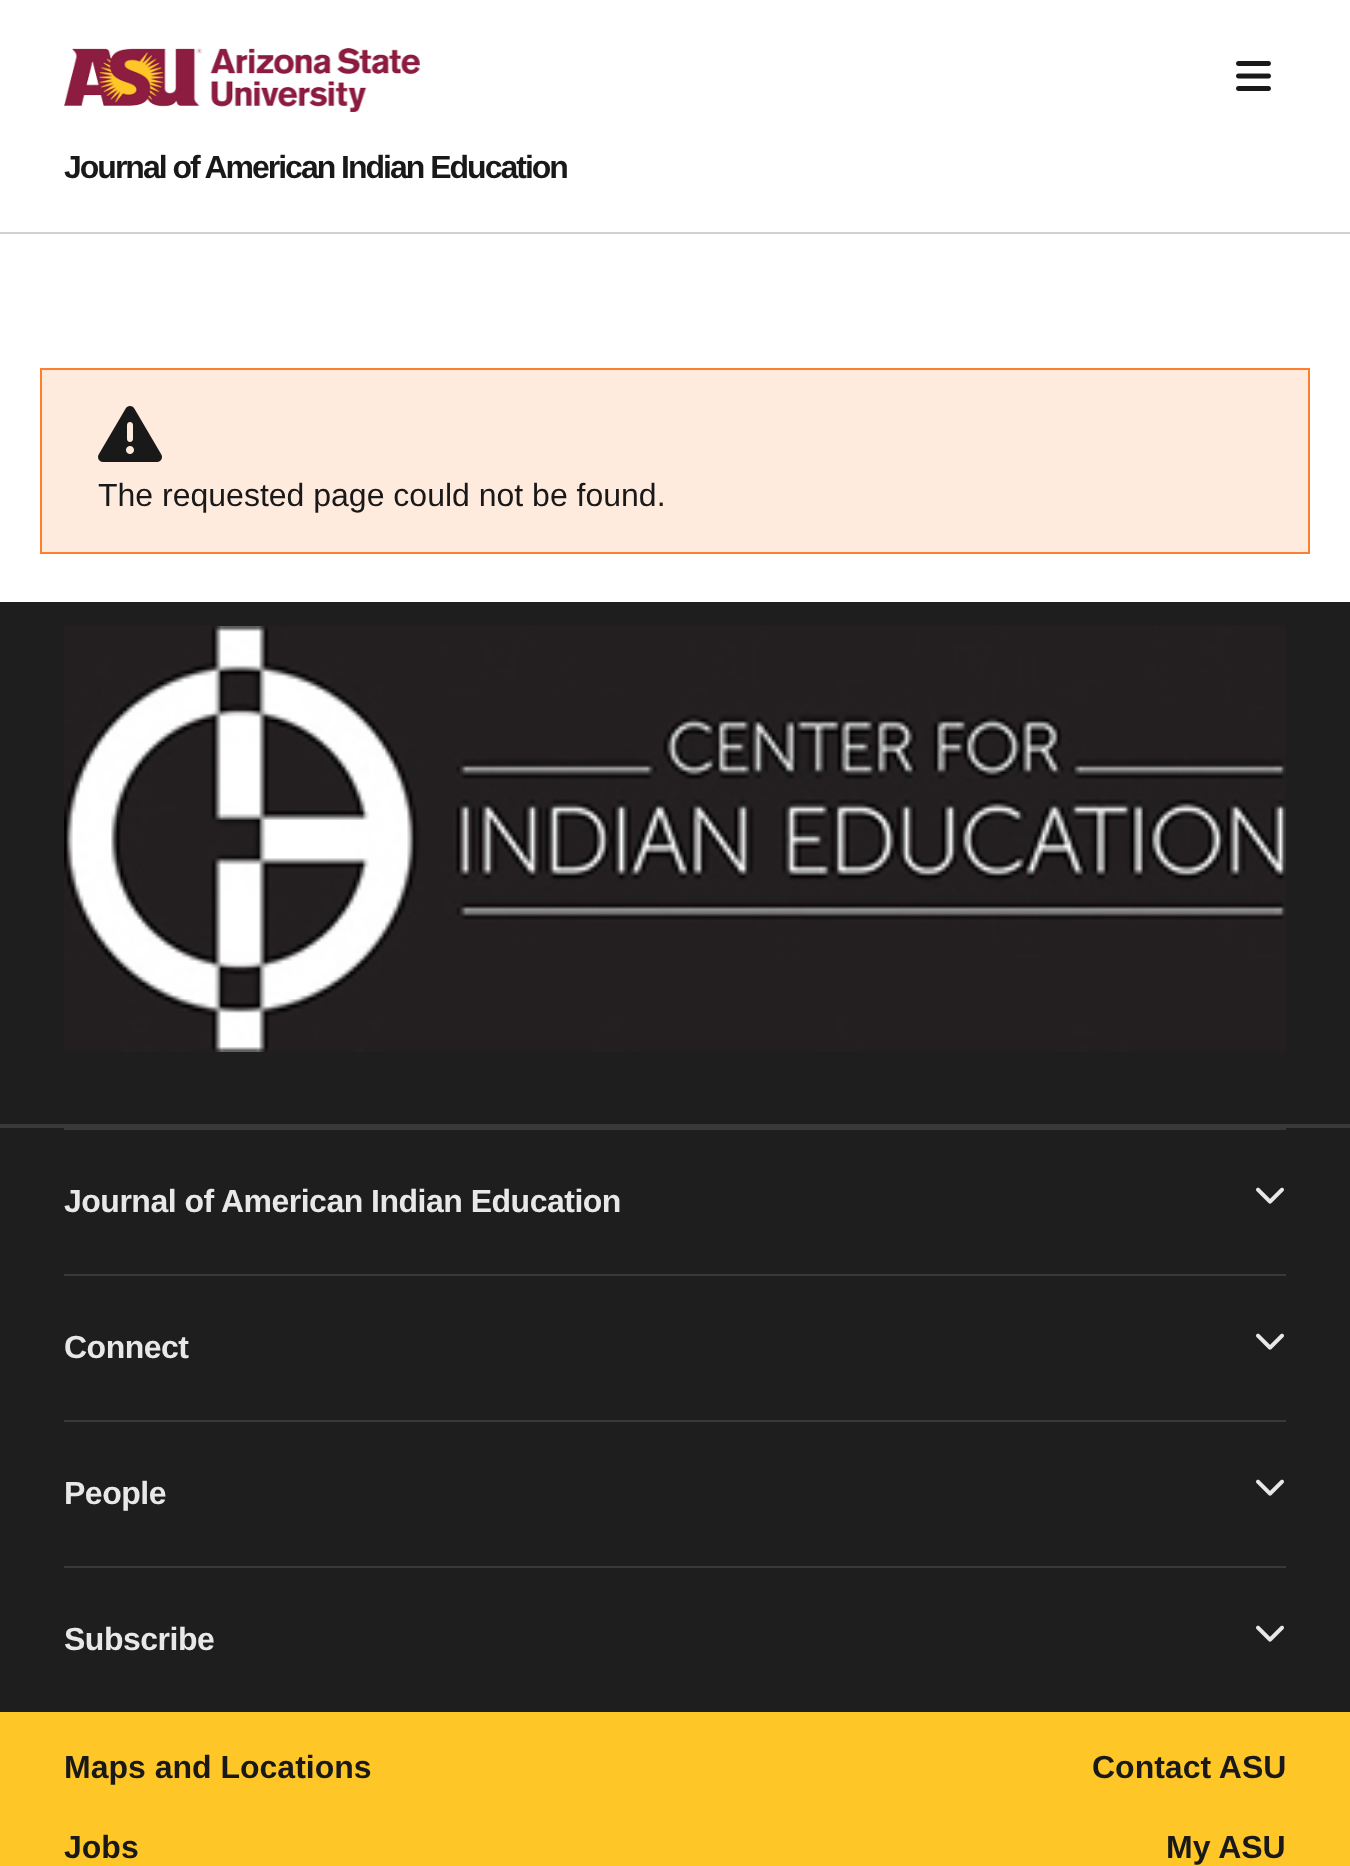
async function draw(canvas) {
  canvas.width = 1350
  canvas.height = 1866
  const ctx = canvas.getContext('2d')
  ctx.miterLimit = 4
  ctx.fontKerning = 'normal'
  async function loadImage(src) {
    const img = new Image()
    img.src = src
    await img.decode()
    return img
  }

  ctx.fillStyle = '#fff'
  ctx.fillRect(0, 0, 1350, 1866)
  ctx.fillStyle = '#d0d0d0'
  ctx.fillRect(0, 232, 1350, 2)
  ctx.drawImage(await loadImage('image0.png'), 64, 48, 356, 64)
  ctx.drawImage(await loadImage('image1.png'), 1236, 61, 35, 30)
  ctx.letterSpacing = '-2px'
  ctx.font = 'bold 32px Liberation Sans'
  ctx.fillStyle = '#191919'
  ctx.fillText('Journal of American Indian Education', 64, 178)
  ctx.fillStyle = '#ffeade'
  ctx.beginPath()
  ctx.rect(41, 369, 1268, 184)
  ctx.fill()
  ctx.strokeStyle = '#ff7f32'
  ctx.lineWidth = 2
  ctx.stroke()
  ctx.drawImage(await loadImage('image2.png'), 98, 406, 64, 56)
  ctx.letterSpacing = '0px'
  ctx.font = '32px Liberation Sans'
  ctx.fillStyle = '#191919'
  ctx.fillText('The requested page could not be found.', 98, 506)
  ctx.fillStyle = '#1e1e1e'
  ctx.fillRect(0, 602, 1350, 1110)
  ctx.drawImage(await loadImage('image3.png'), 64, 626, 1222, 426)
  ctx.fillStyle = '#393939'
  ctx.fillRect(0, 1124, 1350, 4)
  ctx.fillRect(64, 1128, 1222, 2)
  ctx.letterSpacing = '-0.5px'
  ctx.font = 'bold 32px Liberation Sans'
  ctx.fillStyle = '#e8e8e8'
  ctx.fillText('Journal of American Indian Education', 64, 1212)
  ctx.drawImage(await loadImage('image4.png'), 1256, 1187, 28, 17)
  ctx.fillStyle = '#393939'
  ctx.fillRect(64, 1274, 1222, 2)
  ctx.fillStyle = '#e8e8e8'
  ctx.fillText('Connect', 64, 1358)
  ctx.drawImage(await loadImage('image4.png'), 1256, 1333, 28, 17)
  ctx.fillStyle = '#393939'
  ctx.fillRect(64, 1420, 1222, 2)
  ctx.fillStyle = '#e8e8e8'
  ctx.fillText('People', 64, 1504)
  ctx.drawImage(await loadImage('image4.png'), 1256, 1479, 28, 17)
  ctx.fillStyle = '#393939'
  ctx.fillRect(64, 1566, 1222, 2)
  ctx.fillStyle = '#e8e8e8'
  ctx.fillText('Subscribe', 64, 1650)
  ctx.drawImage(await loadImage('image4.png'), 1256, 1625, 28, 17)
  ctx.fillStyle = '#ffc627'
  ctx.fillRect(0, 1712, 1350, 154)
  ctx.letterSpacing = '0px'
  ctx.fillStyle = '#191919'
  ctx.fillText('Maps and Locations', 64, 1778)
  ctx.fillText('Contact ASU', 1092, 1778)
  ctx.fillText('Jobs', 64, 1858)
  ctx.fillText('My ASU', 1166, 1858)
}

draw(document.querySelector('canvas'))
